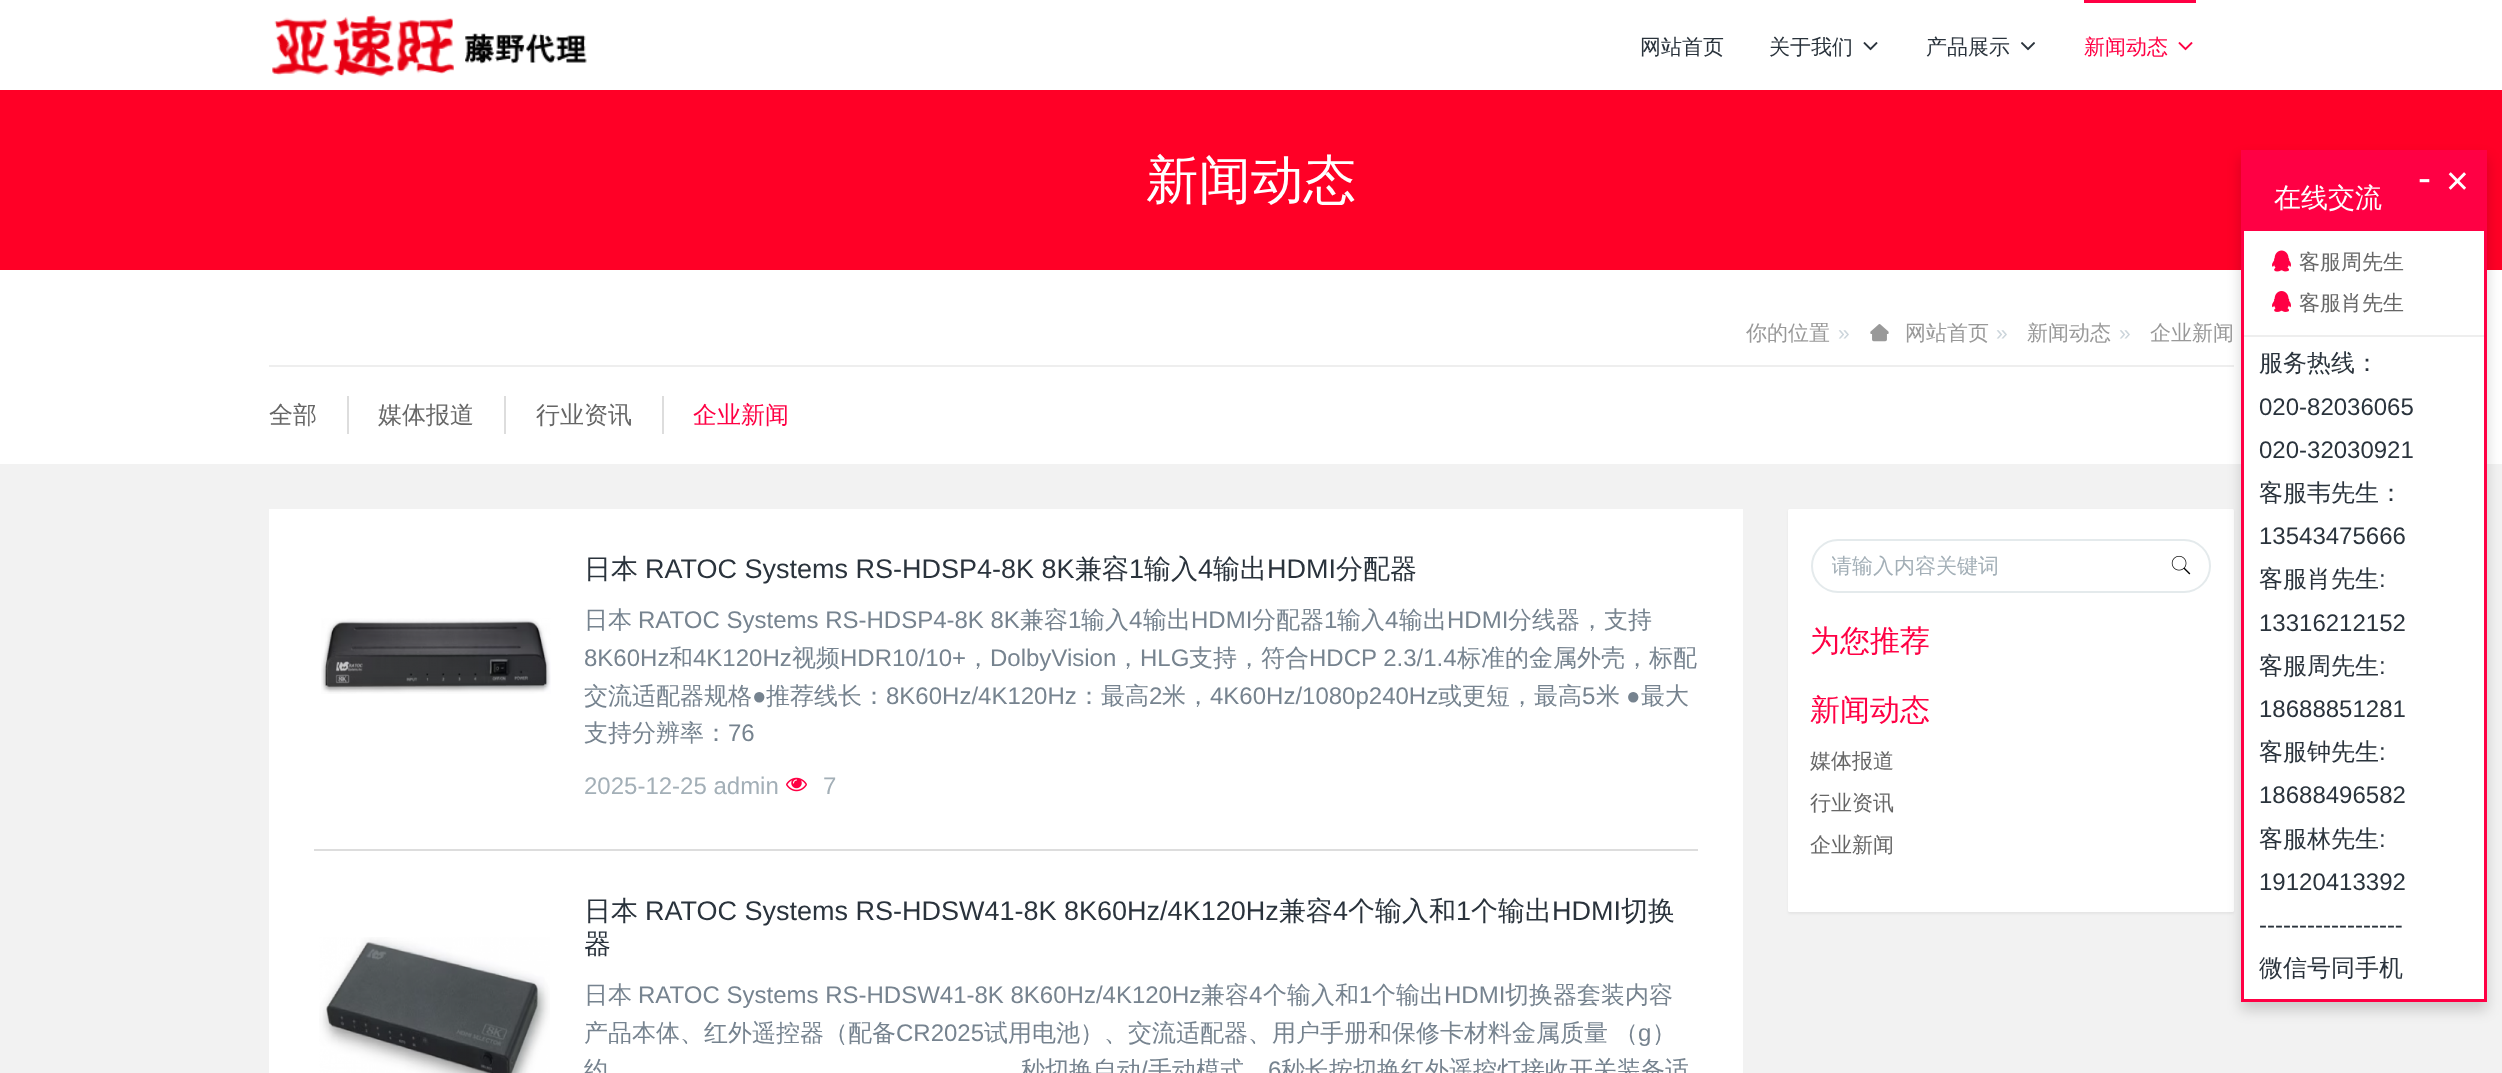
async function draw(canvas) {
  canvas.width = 2502
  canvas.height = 1073
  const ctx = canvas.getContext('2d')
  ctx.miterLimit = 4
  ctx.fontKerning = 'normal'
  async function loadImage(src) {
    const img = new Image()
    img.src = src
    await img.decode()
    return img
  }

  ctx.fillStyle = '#fff'
  ctx.fillRect(0, 0, 2502, 1073)
  ctx.drawImage(await loadImage('image0.png'), 272, 15, 315, 62)
  ctx.font = '500 21px WenQuanYi Zen Hei'
  ctx.fillStyle = '#2a333c'
  ctx.fillText('网站首页', 1640, 54)
  ctx.fillText('关于我们', 1769, 54)
  ctx.drawImage(await loadImage('image1.png'), 1863, 42, 15, 9)
  ctx.fillText('产品展示', 1926, 54)
  ctx.drawImage(await loadImage('image2.png'), 2021, 42, 14, 9)
  ctx.fillStyle = '#f04'
  ctx.fillRect(2084, 0, 112, 3)
  ctx.fillText('新闻动态', 2084, 54)
  ctx.drawImage(await loadImage('image3.png'), 2178, 42, 15, 9)
  ctx.fillStyle = '#ff0026'
  ctx.fillRect(0, 90, 2502, 180)
  ctx.font = '500 52.5px WenQuanYi Zen Hei'
  ctx.fillStyle = '#fff'
  ctx.fillText('新闻动态', 1146, 198)
  ctx.fillStyle = '#eee'
  ctx.fillRect(269, 365, 1965, 2)
  ctx.font = '500 21px WenQuanYi Zen Hei'
  ctx.fillStyle = '#999'
  ctx.fillText('你的位置', 1746, 340)
  ctx.font = '21px Liberation Sans'
  ctx.fillStyle = '#ccd5db'
  ctx.fillText('»', 1838, 340)
  ctx.drawImage(await loadImage('image4.png'), 1870, 324, 19, 18)
  ctx.font = '500 21px WenQuanYi Zen Hei'
  ctx.fillStyle = '#999'
  ctx.fillText('网站首页', 1905, 340)
  ctx.font = '21px Liberation Sans'
  ctx.fillStyle = '#ccd5db'
  ctx.fillText('»', 1996, 340)
  ctx.font = '500 21px WenQuanYi Zen Hei'
  ctx.fillStyle = '#999'
  ctx.fillText('新闻动态', 2027, 340)
  ctx.font = '21px Liberation Sans'
  ctx.fillStyle = '#ccd5db'
  ctx.fillText('»', 2119, 340)
  ctx.font = '500 21px WenQuanYi Zen Hei'
  ctx.fillStyle = '#999'
  ctx.fillText('企业新闻', 2150, 340)
  ctx.fillStyle = '#f2f2f2'
  ctx.fillRect(0, 464, 2502, 609)
  ctx.fillStyle = '#0000000d'
  ctx.filter = 'blur(1px)'
  ctx.beginPath()
  ctx.roundRect(1788, 510, 446, 404, 1.5)
  ctx.fill()
  ctx.filter = 'none'
  ctx.fillStyle = '#fff'
  ctx.beginPath()
  ctx.roundRect(1788, 509, 446, 403, 1.5)
  ctx.fill()
  ctx.fillStyle = '#0400002b'
  ctx.filter = 'blur(7px)'
  ctx.beginPath()
  ctx.rect(2241, 158, 246, 852)
  ctx.fill()
  ctx.filter = 'none'
  ctx.fillStyle = '#fff'
  ctx.fillRect(2244, 231, 240, 768)
  ctx.strokeStyle = '#f04'
  ctx.lineWidth = 3
  ctx.strokeRect(2242.5, 151.5, 243, 849)
  ctx.fillStyle = '#f04'
  ctx.fillRect(2244, 153, 240, 78)
  ctx.font = '39px Liberation Sans'
  ctx.fillStyle = '#fff'
  ctx.fillText('-', 2418, 191)
  ctx.fillText('×', 2446, 194)
  ctx.font = '500 27px WenQuanYi Zen Hei'
  ctx.fillText('在线交流', 2274, 207)
  ctx.drawImage(await loadImage('image5.png'), 2272, 250, 19, 22)
  ctx.font = '500 21px WenQuanYi Zen Hei'
  ctx.fillStyle = '#666'
  ctx.fillText('客服周先生', 2299, 269)
  ctx.drawImage(await loadImage('image6.png'), 2272, 291, 19, 21)
  ctx.fillText('客服肖先生', 2299, 310)
  ctx.fillStyle = '#eee'
  ctx.fillRect(2244, 335, 240, 2)
  ctx.font = '500 24px WenQuanYi Zen Hei'
  ctx.fillStyle = '#2a333c'
  ctx.fillText('服务热线：', 2259, 371)
  ctx.font = '24px Liberation Sans'
  ctx.fillText('020-82036065', 2259, 415)
  ctx.fillText('020-32030921', 2259, 458)
  ctx.font = '500 24px WenQuanYi Zen Hei'
  ctx.fillText('客服韦先生：', 2259, 501)
  ctx.font = '24px Liberation Sans'
  ctx.fillText('13543475666', 2259, 544)
  ctx.font = '500 24px WenQuanYi Zen Hei'
  ctx.fillText('客服肖先生', 2259, 587)
  ctx.font = '24px Liberation Sans'
  ctx.fillText(':', 2379, 587)
  ctx.fillText('13316212152', 2259, 631)
  ctx.font = '500 24px WenQuanYi Zen Hei'
  ctx.fillText('客服周先生', 2259, 674)
  ctx.font = '24px Liberation Sans'
  ctx.fillText(':', 2379, 674)
  ctx.fillText('18688851281', 2259, 717)
  ctx.font = '500 24px WenQuanYi Zen Hei'
  ctx.fillText('客服钟先生', 2259, 760)
  ctx.font = '24px Liberation Sans'
  ctx.fillText(':', 2379, 760)
  ctx.fillText('18688496582', 2259, 803)
  ctx.font = '500 24px WenQuanYi Zen Hei'
  ctx.fillText('客服林先生', 2259, 847)
  ctx.font = '24px Liberation Sans'
  ctx.fillText(':', 2379, 847)
  ctx.fillText('19120413392', 2259, 890)
  ctx.fillText('------------------', 2259, 933)
  ctx.font = '500 24px WenQuanYi Zen Hei'
  ctx.fillText('微信号同手机', 2259, 976)
  ctx.fillStyle = '#666'
  ctx.fillText('全部', 269, 423)
  ctx.fillStyle = '#ddd'
  ctx.fillRect(347, 396, 2, 38)
  ctx.fillStyle = '#666'
  ctx.fillText('媒体报道', 378, 423)
  ctx.fillStyle = '#ddd'
  ctx.fillRect(504, 396, 2, 38)
  ctx.fillStyle = '#666'
  ctx.fillText('行业资讯', 536, 423)
  ctx.fillStyle = '#ddd'
  ctx.fillRect(662, 396, 2, 38)
  ctx.fillStyle = '#f04'
  ctx.fillText('企业新闻', 693, 423)
  ctx.fillStyle = '#fff'
  ctx.fillRect(269, 509, 1474, 564)
  ctx.fillStyle = '#ddd'
  ctx.fillRect(314, 849, 1384, 2)
  ctx.drawImage(await loadImage('image7.png'), 321, 618, 230, 76)
  ctx.font = '500 27px WenQuanYi Zen Hei'
  ctx.fillStyle = '#2a333c'
  ctx.fillText('日本', 584, 578)
  ctx.font = '27px Liberation Sans'
  ctx.fillText('RATOC Systems RS-HDSP4-8K 8K', 645, 578)
  ctx.font = '500 27px WenQuanYi Zen Hei'
  ctx.fillText('兼容', 1075, 578)
  ctx.font = '27px Liberation Sans'
  ctx.fillText('1', 1129, 578)
  ctx.font = '500 27px WenQuanYi Zen Hei'
  ctx.fillText('输入', 1144, 578)
  ctx.font = '27px Liberation Sans'
  ctx.fillText('4', 1198, 578)
  ctx.font = '500 27px WenQuanYi Zen Hei'
  ctx.fillText('输出', 1213, 578)
  ctx.font = '27px Liberation Sans'
  ctx.fillText('HDMI', 1267, 578)
  ctx.font = '500 27px WenQuanYi Zen Hei'
  ctx.fillText('分配器', 1336, 578)
  ctx.font = '500 24px WenQuanYi Zen Hei'
  ctx.fillStyle = '#76838f'
  ctx.fillText('日本', 584, 628)
  ctx.font = '24px Liberation Sans'
  ctx.fillText('RATOC Systems RS-HDSP4-8K 8K', 638, 628)
  ctx.font = '500 24px WenQuanYi Zen Hei'
  ctx.fillText('兼容', 1020, 628)
  ctx.font = '24px Liberation Sans'
  ctx.fillText('1', 1068, 628)
  ctx.font = '500 24px WenQuanYi Zen Hei'
  ctx.fillText('输入', 1081, 628)
  ctx.font = '24px Liberation Sans'
  ctx.fillText('4', 1129, 628)
  ctx.font = '500 24px WenQuanYi Zen Hei'
  ctx.fillText('输出', 1143, 628)
  ctx.font = '24px Liberation Sans'
  ctx.fillText('HDMI', 1191, 628)
  ctx.font = '500 24px WenQuanYi Zen Hei'
  ctx.fillText('分配器', 1252, 628)
  ctx.font = '24px Liberation Sans'
  ctx.fillText('1', 1324, 628)
  ctx.font = '500 24px WenQuanYi Zen Hei'
  ctx.fillText('输入', 1337, 628)
  ctx.font = '24px Liberation Sans'
  ctx.fillText('4', 1385, 628)
  ctx.font = '500 24px WenQuanYi Zen Hei'
  ctx.fillText('输出', 1399, 628)
  ctx.font = '24px Liberation Sans'
  ctx.fillText('HDMI', 1447, 628)
  ctx.font = '500 24px WenQuanYi Zen Hei'
  ctx.fillText('分线器，支持', 1508, 628)
  ctx.font = '24px Liberation Sans'
  ctx.fillText('8K60Hz', 584, 666)
  ctx.font = '500 24px WenQuanYi Zen Hei'
  ctx.fillText('和', 669, 666)
  ctx.font = '24px Liberation Sans'
  ctx.fillText('4K120Hz', 693, 666)
  ctx.font = '500 24px WenQuanYi Zen Hei'
  ctx.fillText('视频', 792, 666)
  ctx.font = '24px Liberation Sans'
  ctx.fillText('HDR10/10+', 840, 666)
  ctx.font = '500 24px WenQuanYi Zen Hei'
  ctx.fillText('，', 966, 666)
  ctx.font = '24px Liberation Sans'
  ctx.fillText('DolbyVision', 990, 666)
  ctx.font = '500 24px WenQuanYi Zen Hei'
  ctx.fillText('，', 1116, 666)
  ctx.font = '24px Liberation Sans'
  ctx.fillText('HLG', 1140, 666)
  ctx.font = '500 24px WenQuanYi Zen Hei'
  ctx.fillText('支持，符合', 1189, 666)
  ctx.font = '24px Liberation Sans'
  ctx.fillText('HDCP 2.3/1.4', 1309, 666)
  ctx.font = '500 24px WenQuanYi Zen Hei'
  ctx.fillText('标准的金属外壳，标配', 1457, 666)
  ctx.fillText('交流适配器规格', 584, 704)
  ctx.font = '24px Liberation Sans'
  ctx.fillText('●', 752, 704)
  ctx.font = '500 24px WenQuanYi Zen Hei'
  ctx.fillText('推荐线长：', 766, 704)
  ctx.font = '24px Liberation Sans'
  ctx.fillText('8K60Hz/4K120Hz', 886, 704)
  ctx.font = '500 24px WenQuanYi Zen Hei'
  ctx.fillText('：最高', 1077, 704)
  ctx.font = '24px Liberation Sans'
  ctx.fillText('2', 1149, 704)
  ctx.font = '500 24px WenQuanYi Zen Hei'
  ctx.fillText('米，', 1162, 704)
  ctx.font = '24px Liberation Sans'
  ctx.fillText('4K60Hz/1080p240Hz', 1210, 704)
  ctx.font = '500 24px WenQuanYi Zen Hei'
  ctx.fillText('或更短，最高', 1438, 704)
  ctx.font = '24px Liberation Sans'
  ctx.fillText('5', 1582, 704)
  ctx.font = '500 24px WenQuanYi Zen Hei'
  ctx.fillText('米', 1596, 704)
  ctx.font = '24px Liberation Sans'
  ctx.fillText('●', 1626, 704)
  ctx.font = '500 24px WenQuanYi Zen Hei'
  ctx.fillText('最大', 1641, 704)
  ctx.fillText('支持分辨率：', 584, 741)
  ctx.font = '24px Liberation Sans'
  ctx.fillText('76', 728, 741)
  ctx.fillStyle = '#a3afb7'
  ctx.fillText('2025-12-25 admin', 584, 794)
  ctx.drawImage(await loadImage('image8.png'), 786, 777, 21, 15)
  ctx.fillText('7', 823, 794)
  ctx.drawImage(await loadImage('image9.png'), 319, 937, 231, 136)
  ctx.font = '500 27px WenQuanYi Zen Hei'
  ctx.fillStyle = '#2a333c'
  ctx.fillText('日本', 584, 920)
  ctx.font = '27px Liberation Sans'
  ctx.fillText('RATOC Systems RS-HDSW41-8K 8K60Hz/4K120Hz', 645, 920)
  ctx.font = '500 27px WenQuanYi Zen Hei'
  ctx.fillText('兼容', 1279, 920)
  ctx.font = '27px Liberation Sans'
  ctx.fillText('4', 1333, 920)
  ctx.font = '500 27px WenQuanYi Zen Hei'
  ctx.fillText('个输入和', 1348, 920)
  ctx.font = '27px Liberation Sans'
  ctx.fillText('1', 1456, 920)
  ctx.font = '500 27px WenQuanYi Zen Hei'
  ctx.fillText('个输出', 1471, 920)
  ctx.font = '27px Liberation Sans'
  ctx.fillText('HDMI', 1552, 920)
  ctx.font = '500 27px WenQuanYi Zen Hei'
  ctx.fillText('切换', 1621, 920)
  ctx.fillText('器', 584, 953)
  ctx.font = '500 24px WenQuanYi Zen Hei'
  ctx.fillStyle = '#76838f'
  ctx.fillText('日本', 584, 1003)
  ctx.font = '24px Liberation Sans'
  ctx.fillText('RATOC Systems RS-HDSW41-8K 8K60Hz/4K120Hz', 638, 1003)
  ctx.font = '500 24px WenQuanYi Zen Hei'
  ctx.fillText('兼容', 1201, 1003)
  ctx.font = '24px Liberation Sans'
  ctx.fillText('4', 1249, 1003)
  ctx.font = '500 24px WenQuanYi Zen Hei'
  ctx.fillText('个输入和', 1263, 1003)
  ctx.font = '24px Liberation Sans'
  ctx.fillText('1', 1359, 1003)
  ctx.font = '500 24px WenQuanYi Zen Hei'
  ctx.fillText('个输出', 1372, 1003)
  ctx.font = '24px Liberation Sans'
  ctx.fillText('HDMI', 1444, 1003)
  ctx.font = '500 24px WenQuanYi Zen Hei'
  ctx.fillText('切换器套装内容', 1505, 1003)
  ctx.fillText('产品本体、红外遥控器（配备', 584, 1041)
  ctx.font = '24px Liberation Sans'
  ctx.fillText('CR2025', 896, 1041)
  ctx.wordSpacing = '-1px'
  ctx.font = '500 24px WenQuanYi Zen Hei'
  ctx.fillText('试用电池）、交流适配器、用户手册和保修卡材料金属质量 （', 984, 1041)
  ctx.wordSpacing = '0px'
  ctx.font = '24px Liberation Sans'
  ctx.fillText('g', 1638, 1041)
  ctx.font = '500 24px WenQuanYi Zen Hei'
  ctx.fillText('）', 1652, 1041)
  ctx.fillText('约', 584, 1078)
  ctx.fillText('秒切换自动', 1021, 1078)
  ctx.font = '24px Liberation Sans'
  ctx.fillText('/', 1141, 1078)
  ctx.font = '500 24px WenQuanYi Zen Hei'
  ctx.fillText('手动模式', 1148, 1078)
  ctx.font = '24px Liberation Sans'
  ctx.fillText('6', 1268, 1078)
  ctx.font = '500 24px WenQuanYi Zen Hei'
  ctx.fillText('秒长按切换红外遥控灯接收开关装备适', 1281, 1078)
  ctx.beginPath()
  ctx.roundRect(1812, 540, 398, 52, 26)
  ctx.strokeStyle = '#e4eaec'
  ctx.lineWidth = 2
  ctx.stroke()
  ctx.save()
  ctx.beginPath()
  ctx.rect(1832, 554, 303, 27)
  ctx.clip()
  ctx.font = '500 21px WenQuanYi Zen Hei'
  ctx.fillStyle = '#a3afb7'
  ctx.fillText('请输入内容关键词', 1831, 573)
  ctx.restore()
  ctx.drawImage(await loadImage('image10.png'), 2171, 555, 20, 20)
  ctx.font = '500 30px WenQuanYi Zen Hei'
  ctx.fillStyle = '#f04'
  ctx.fillText('为您推荐', 1810, 651)
  ctx.fillText('新闻动态', 1810, 720)
  ctx.font = '500 21px WenQuanYi Zen Hei'
  ctx.fillStyle = '#666'
  ctx.fillText('媒体报道', 1810, 768)
  ctx.fillText('行业资讯', 1810, 810)
  ctx.fillText('企业新闻', 1810, 852)
}

draw(document.querySelector('canvas'))
